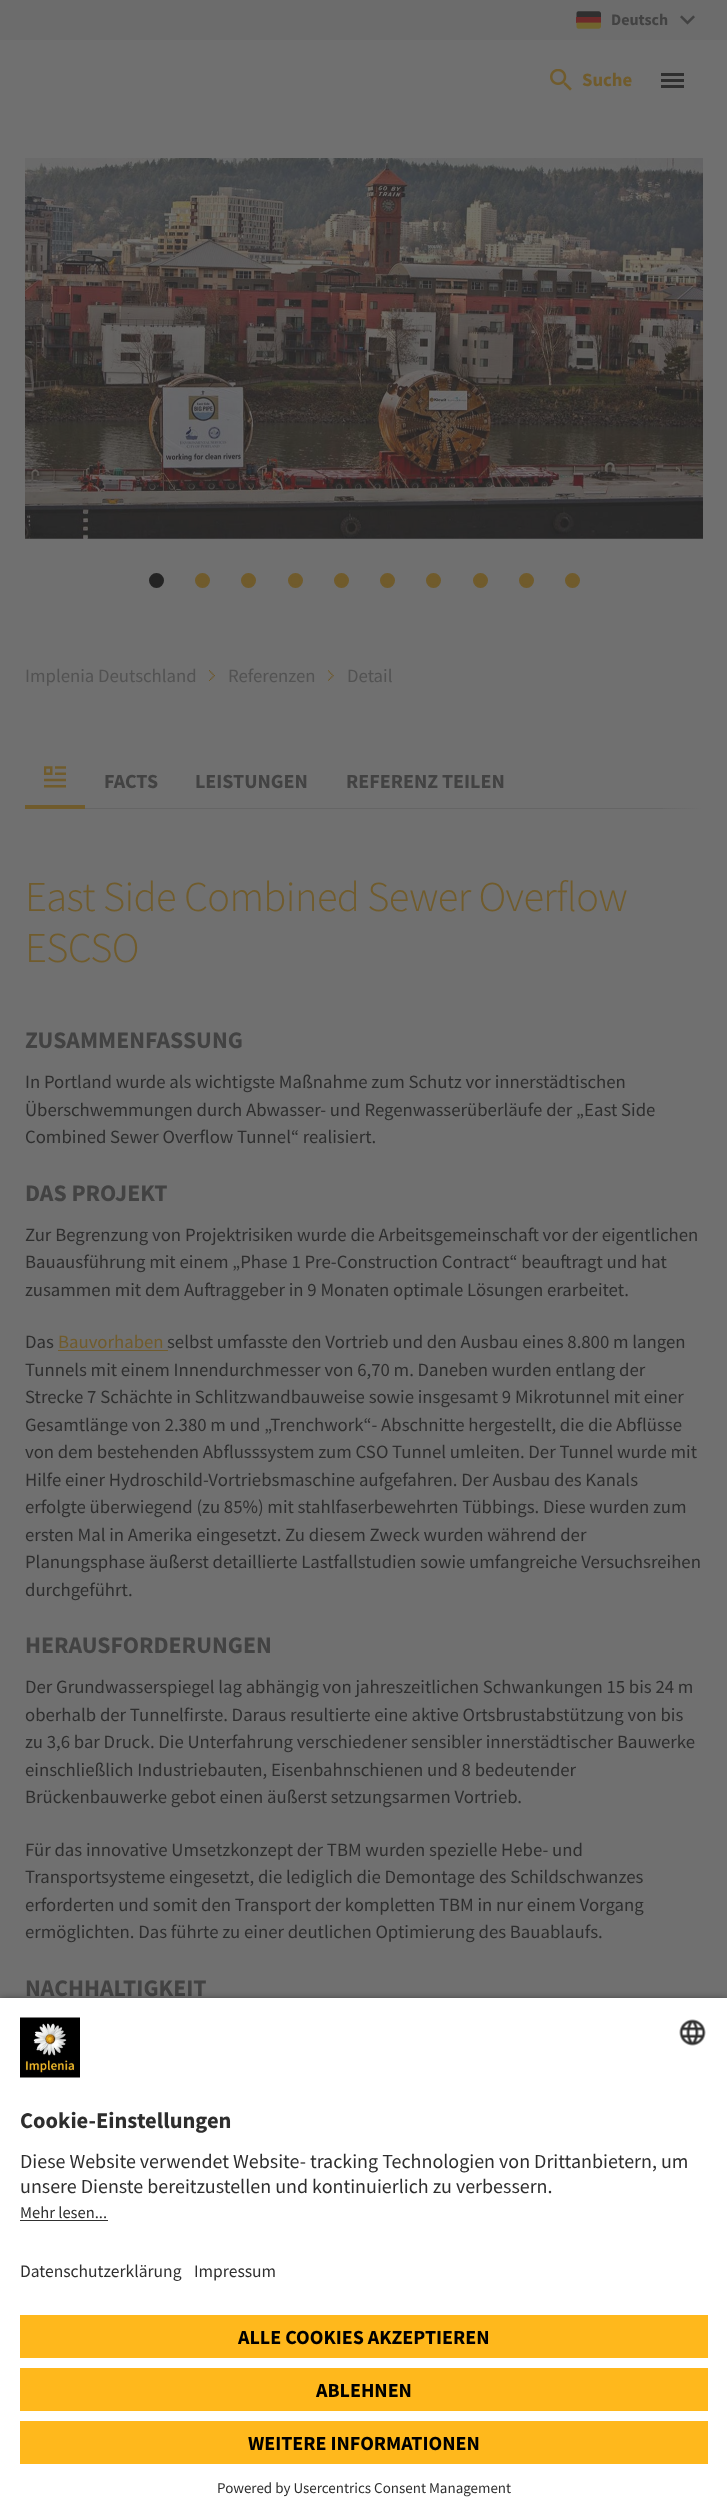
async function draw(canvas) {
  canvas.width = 727
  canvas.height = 2516
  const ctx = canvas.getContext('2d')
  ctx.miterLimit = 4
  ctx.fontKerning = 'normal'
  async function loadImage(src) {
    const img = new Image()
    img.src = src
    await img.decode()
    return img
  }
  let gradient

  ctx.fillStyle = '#707070'
  ctx.fillRect(0, 0, 727, 2516)
  ctx.fillStyle = '#6c6c6c'
  ctx.fillRect(0, 0, 727, 40)
  ctx.drawImage(await loadImage('image0.png'), 576, 11, 25, 18)
  ctx.font = 'bold 16px Source Sans Pro'
  ctx.fillStyle = '#424242'
  ctx.fillText('Deutsch', 611, 25)
  ctx.drawImage(await loadImage('image1.png'), 680, 15, 15, 10)
  ctx.drawImage(await loadImage('image2.png'), 550, 69, 22, 22)
  ctx.font = 'bold 18.75px Source Sans Pro'
  ctx.fillStyle = '#705b2c'
  ctx.fillText('Suche', 582, 86)
  ctx.fillStyle = '#2e2e2e'
  ctx.fillRect(661, 73, 23, 3)
  ctx.fillRect(661, 79, 23, 3)
  ctx.fillRect(661, 85, 23, 3)
  ctx.drawImage(await loadImage('image3.png'), 25, 158, 678, 381)
  ctx.fillStyle = '#242424'
  ctx.beginPath()
  ctx.arc(156.5, 580.5, 6, 0, 2 * Math.PI)
  ctx.fill()
  ctx.strokeStyle = '#242424'
  ctx.lineWidth = 3
  ctx.stroke()
  ctx.fillStyle = '#705b2c'
  ctx.beginPath()
  ctx.arc(202.5, 580.5, 6, 0, 2 * Math.PI)
  ctx.fill()
  ctx.strokeStyle = '#705b2c'
  ctx.stroke()
  ctx.beginPath()
  ctx.arc(248.5, 580.5, 6, 0, 2 * Math.PI)
  ctx.fill()
  ctx.stroke()
  ctx.beginPath()
  ctx.arc(295.5, 580.5, 6, 0, 2 * Math.PI)
  ctx.fill()
  ctx.stroke()
  ctx.beginPath()
  ctx.arc(341.5, 580.5, 6, 0, 2 * Math.PI)
  ctx.fill()
  ctx.stroke()
  ctx.beginPath()
  ctx.arc(387.5, 580.5, 6, 0, 2 * Math.PI)
  ctx.fill()
  ctx.stroke()
  ctx.beginPath()
  ctx.arc(433.5, 580.5, 6, 0, 2 * Math.PI)
  ctx.fill()
  ctx.stroke()
  ctx.beginPath()
  ctx.arc(480.5, 580.5, 6, 0, 2 * Math.PI)
  ctx.fill()
  ctx.stroke()
  ctx.beginPath()
  ctx.arc(526.5, 580.5, 6, 0, 2 * Math.PI)
  ctx.fill()
  ctx.stroke()
  ctx.beginPath()
  ctx.arc(572.5, 580.5, 6, 0, 2 * Math.PI)
  ctx.fill()
  ctx.stroke()
  ctx.font = '18.75px Source Sans Pro'
  ctx.fillStyle = '#525252'
  ctx.fillText('Implenia Deutschland', 25, 682)
  ctx.drawImage(await loadImage('image4.png'), 209, 670, 6, 11)
  ctx.fillText('Referenzen', 228, 682)
  ctx.drawImage(await loadImage('image5.png'), 328, 670, 6, 11)
  ctx.fillText('Detail', 347, 682)
  ctx.drawImage(await loadImage('image6.png'), 44, 766, 22, 22)
  ctx.fillStyle = '#705b2c'
  ctx.fillRect(25, 805, 60, 4)
  ctx.font = 'bold 20px Source Sans Pro'
  ctx.fillStyle = '#424242'
  ctx.fillText('FACTS', 104, 788)
  ctx.fillText('LEISTUNGEN', 195, 788)
  ctx.fillText('REFERENZ TEILEN', 346, 788)
  ctx.fillStyle = '#656565'
  ctx.fillRect(85, 808, 618, 1)
  gradient = ctx.createLinearGradient(703, 799, 653, 799)
  gradient.addColorStop(0, '#707070')
  gradient.addColorStop(1, '#70707000')
  ctx.fillStyle = gradient
  ctx.fillRect(663, 808, 40, 1)
  ctx.letterSpacing = '-0.6px'
  ctx.font = '300 42.5px Source Sans Pro'
  ctx.fillStyle = '#705b2c'
  ctx.fillText('East Side Combined Sewer Overflow', 25, 911)
  ctx.fillText('ESCSO', 25, 962)
  ctx.letterSpacing = '0px'
  ctx.font = 'bold 23.75px Source Sans Pro'
  ctx.fillStyle = '#424242'
  ctx.fillText('ZUSAMMENFASSUNG', 25, 1048)
  ctx.font = '18.75px Source Sans Pro'
  ctx.fillStyle = '#2e2e2e'
  ctx.fillText('In Portland wurde als wichtigste Maßnahme zum Schutz vor innerstädtischen', 25, 1088)
  ctx.fillText('Überschwemmungen durch Abwasser- und Regenwasserüberläufe der „East Side', 25, 1116)
  ctx.fillText('Combined Sewer Overflow Tunnel“ realisiert.', 25, 1143)
  ctx.font = 'bold 23.75px Source Sans Pro'
  ctx.fillStyle = '#424242'
  ctx.fillText('DAS PROJEKT', 25, 1201)
  ctx.font = '18.75px Source Sans Pro'
  ctx.fillStyle = '#2e2e2e'
  ctx.fillText('Zur Begrenzung von Projektrisiken wurde die Arbeitsgemeinschaft vor der eigentlichen', 25, 1241)
  ctx.fillText('Bauausführung mit einem „Phase 1 Pre-Construction Contract“ beauftragt und hat', 25, 1268)
  ctx.fillText('zusammen mit dem Auftraggeber in 9 Monaten optimale Lösungen erarbeitet.', 25, 1296)
  ctx.fillText('Das', 25, 1348)
  ctx.fillStyle = '#705b2c'
  ctx.fillText('Bauvorhaben', 58, 1348)
  ctx.fillRect(58, 1350, 110, 1)
  ctx.fillStyle = '#2e2e2e'
  ctx.fillText('selbst umfasste den Vortrieb und den Ausbau eines 8.800 m langen', 167, 1348)
  ctx.fillText('Tunnels mit einem Innendurchmesser von 6,70 m. Daneben wurden entlang der', 25, 1376)
  ctx.fillText('Strecke 7 Schächte in Schlitzwandbauweise sowie insgesamt 9 Mikrotunnel mit einer', 25, 1403)
  ctx.fillText('Gesamtlänge von 2.380 m und „Trenchwork“- Abschnitte hergestellt, die die Abflüsse', 25, 1431)
  ctx.fillText('von dem bestehenden Abflusssystem zum CSO Tunnel umleiten. Der Tunnel wurde mit', 25, 1458)
  ctx.fillText('Hilfe einer Hydroschild-Vortriebsmaschine aufgefahren. Der Ausbau des Kanals', 25, 1486)
  ctx.fillText('erfolgte überwiegend (zu 85%) mit stahlfaserbewehrten Tübbings. Diese wurden zum', 25, 1513)
  ctx.fillText('ersten Mal in Amerika eingesetzt. Zu diesem Zweck wurden während der', 25, 1541)
  ctx.fillText('Planungsphase äußerst detaillierte Lastfallstudien sowie umfangreiche Versuchsreihen', 25, 1568)
  ctx.fillText('durchgeführt.', 25, 1596)
  ctx.font = 'bold 23.75px Source Sans Pro'
  ctx.fillStyle = '#424242'
  ctx.fillText('HERAUSFORDERUNGEN', 25, 1653)
  ctx.font = '18.75px Source Sans Pro'
  ctx.fillStyle = '#2e2e2e'
  ctx.fillText('Der Grundwasserspiegel lag abhängig von jahreszeitlichen Schwankungen 15 bis 24 m', 25, 1693)
  ctx.fillText('oberhalb der Tunnelfirste. Daraus resultierte eine aktive Ortsbrustabstützung von bis', 25, 1721)
  ctx.fillText('zu 3,6 bar Druck. Die Unterfahrung verschiedener sensibler innerstädtischer Bauwerke', 25, 1748)
  ctx.fillText('einschließlich Industriebauten, Eisenbahnschienen und 8 bedeutender', 25, 1776)
  ctx.fillText('Brückenbauwerke gebot einen äußerst setzungsarmen Vortrieb.', 25, 1803)
  ctx.fillText('Für das innovative Umsetzkonzept der TBM wurden spezielle Hebe- und', 25, 1856)
  ctx.fillText('Transportsysteme eingesetzt, die lediglich die Demontage des Schildschwanzes', 25, 1883)
  ctx.fillText('erforderten und somit den Transport der kompletten TBM in nur einem Vorgang', 25, 1911)
  ctx.fillText('ermöglichten. Das führte zu einer deutlichen Optimierung des Bauablaufs.', 25, 1938)
  ctx.font = 'bold 23.75px Source Sans Pro'
  ctx.fillStyle = '#424242'
  ctx.fillText('NACHHALTIGKEIT', 25, 1996)
  ctx.fillStyle = '#000000cc'
  ctx.filter = 'blur(4.5px)'
  ctx.beginPath()
  ctx.rect(0, 2001, 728, 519)
  ctx.fill()
  ctx.filter = 'none'
  ctx.fillStyle = '#fff'
  ctx.fillRect(0, 1998, 727, 518)
  ctx.drawImage(await loadImage('image7.png'), 20, 2017, 60, 61)
  ctx.drawImage(await loadImage('image8.png'), 679, 2019, 27, 27)
  ctx.font = 'bold 22.5px Source Sans Pro'
  ctx.fillStyle = '#2e2e2e'
  ctx.fillText('Cookie-Einstellungen', 20, 2128)
  ctx.font = '20px Source Sans Pro'
  ctx.fillText('Diese Website verwendet Website- tracking Technologien von Drittanbietern, um', 20, 2168)
  ctx.fillText('unsere Dienste bereitzustellen und kontinuierlich zu verbessern.', 20, 2193)
  ctx.font = '16.5px Source Sans Pro'
  ctx.fillText('Mehr lesen...', 20, 2218)
  ctx.fillStyle = '#303030'
  ctx.fillRect(20, 2220, 88, 1)
  ctx.font = '17.5px Source Sans Pro'
  ctx.fillStyle = '#2e2e2e'
  ctx.fillText('Datenschutzerklärung', 20, 2277)
  ctx.fillText('Impressum', 194, 2277)
  ctx.fillStyle = '#ffb81c'
  ctx.fillRect(20, 2315, 688, 43)
  ctx.font = 'bold 20px Source Sans Pro'
  ctx.fillStyle = '#000'
  ctx.fillText('ALLE COOKIES AKZEPTIEREN', 238, 2344)
  ctx.fillStyle = '#ffb81c'
  ctx.fillRect(20, 2368, 688, 43)
  ctx.fillStyle = '#000'
  ctx.fillText('ABLEHNEN', 316, 2397)
  ctx.fillStyle = '#ffb81c'
  ctx.fillRect(20, 2421, 688, 43)
  ctx.fillStyle = '#000'
  ctx.fillText('WEITERE INFORMATIONEN', 248, 2450)
  ctx.font = '15px Source Sans Pro'
  ctx.fillStyle = '#2e2e2e'
  ctx.fillText('Powered by Usercentrics Consent Management', 217, 2493)
}

draw(document.querySelector('canvas'))
